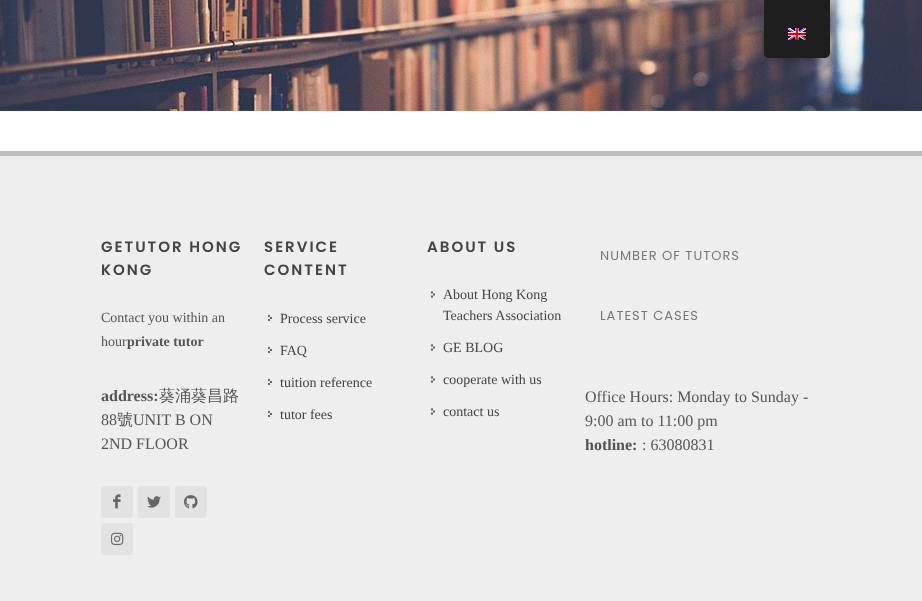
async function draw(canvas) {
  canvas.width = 922
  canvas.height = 601
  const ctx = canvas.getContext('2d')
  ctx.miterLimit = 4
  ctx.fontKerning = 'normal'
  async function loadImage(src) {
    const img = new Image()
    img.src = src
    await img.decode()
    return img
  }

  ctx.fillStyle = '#fff'
  ctx.fillRect(0, 0, 922, 601)
  ctx.drawImage(await loadImage('image1.png'), 0, 0, 922, 111)
  ctx.fillStyle = '#00000040'
  ctx.filter = 'blur(4px)'
  ctx.beginPath()
  ctx.roundRect(764, 0, 66, 58, 5)
  ctx.fill()
  ctx.filter = 'none'
  ctx.fillStyle = '#1e1e1e'
  ctx.beginPath()
  ctx.roundRect(764, 0, 66, 58, [0, 0, 5, 5])
  ctx.fill()
  ctx.drawImage(await loadImage('image0.png'), 788, 28, 18, 12)
  ctx.fillStyle = '#eee'
  ctx.fillRect(0, 156, 922, 445)
  ctx.fillStyle = '#bebebe'
  ctx.fillRect(0, 151, 922, 5)
  ctx.letterSpacing = '2px'
  ctx.font = '600 15px Poppins'
  ctx.fillStyle = '#444'
  ctx.fillText('GETUTOR HONG', 101, 252)
  ctx.fillText('KONG', 101, 275)
  ctx.letterSpacing = '0px'
  ctx.font = '14px Liberation Serif'
  ctx.fillStyle = '#555'
  ctx.fillText('Contact you within an', 101, 322)
  ctx.fillText('hour', 101, 346)
  ctx.font = 'bold 14px Liberation Serif'
  ctx.fillText('private tutor', 127, 346)
  ctx.font = 'bold 16px Liberation Serif'
  ctx.fillText('address:', 101, 401)
  ctx.font = '500 16px WenQuanYi Zen Hei'
  ctx.fillText('葵涌葵昌路', 159, 401)
  ctx.font = '16px Liberation Serif'
  ctx.fillText('88', 101, 425)
  ctx.font = '500 16px WenQuanYi Zen Hei'
  ctx.fillText('號', 117, 425)
  ctx.font = '16px Liberation Serif'
  ctx.fillText('UNIT B ON', 133, 425)
  ctx.fillText('2ND FLOOR', 101, 449)
  ctx.fillStyle = '#e2e2e2'
  ctx.beginPath()
  ctx.roundRect(101, 486, 32, 32, 3)
  ctx.fill()
  ctx.drawImage(await loadImage('image2.png'), 113, 494, 8, 15)
  ctx.beginPath()
  ctx.roundRect(138, 486, 32, 32, 3)
  ctx.fill()
  ctx.drawImage(await loadImage('image3.png'), 147, 496, 14, 12)
  ctx.beginPath()
  ctx.roundRect(175, 486, 32, 32, 3)
  ctx.fill()
  ctx.drawImage(await loadImage('image4.png'), 184, 495, 14, 14)
  ctx.beginPath()
  ctx.roundRect(101, 523, 32, 32, 3)
  ctx.fill()
  ctx.drawImage(await loadImage('image5.png'), 111, 532, 13, 13)
  ctx.letterSpacing = '2px'
  ctx.font = '600 15px Poppins'
  ctx.fillStyle = '#444'
  ctx.fillText('SERVICE', 264, 252)
  ctx.fillText('CONTENT', 264, 275)
  ctx.drawImage(await loadImage('image6.png'), 268, 315, 4, 6)
  ctx.letterSpacing = '0px'
  ctx.font = '14px Liberation Serif'
  ctx.fillText('Process service', 280, 323)
  ctx.drawImage(await loadImage('image6.png'), 268, 347, 4, 6)
  ctx.fillText('FAQ', 280, 355)
  ctx.drawImage(await loadImage('image6.png'), 268, 379, 4, 6)
  ctx.fillText('tuition reference', 280, 387)
  ctx.drawImage(await loadImage('image6.png'), 268, 411, 4, 6)
  ctx.fillText('tutor fees', 280, 419)
  ctx.letterSpacing = '2px'
  ctx.font = '600 15px Poppins'
  ctx.fillText('ABOUT US', 427, 252)
  ctx.drawImage(await loadImage('image7.png'), 431, 291, 4, 7)
  ctx.letterSpacing = '0px'
  ctx.font = '14px Liberation Serif'
  ctx.fillText('About Hong Kong', 443, 299)
  ctx.fillText('Teachers Association', 443, 320)
  ctx.drawImage(await loadImage('image7.png'), 431, 344, 4, 7)
  ctx.fillText('GE BLOG', 443, 352)
  ctx.drawImage(await loadImage('image7.png'), 431, 376, 4, 7)
  ctx.fillText('cooperate with us', 443, 384)
  ctx.drawImage(await loadImage('image7.png'), 431, 408, 4, 7)
  ctx.fillText('contact us', 443, 416)
  ctx.letterSpacing = '1px'
  ctx.font = '13px Poppins'
  ctx.fillStyle = '#777'
  ctx.fillText('NUMBER OF TUTORS', 600, 260)
  ctx.fillText('LATEST CASES', 600, 320)
  ctx.letterSpacing = '0px'
  ctx.font = '16px Liberation Serif'
  ctx.fillStyle = '#555'
  ctx.fillText('Office Hours: Monday to Sunday -', 585, 402)
  ctx.fillText('9:00 am to 11:00 pm', 585, 426)
  ctx.font = 'bold 16px Liberation Serif'
  ctx.fillText('hotline:', 585, 450)
  ctx.font = '16px Liberation Serif'
  ctx.fillText(': 63080831', 642, 450)
}

draw(document.querySelector('canvas'))
